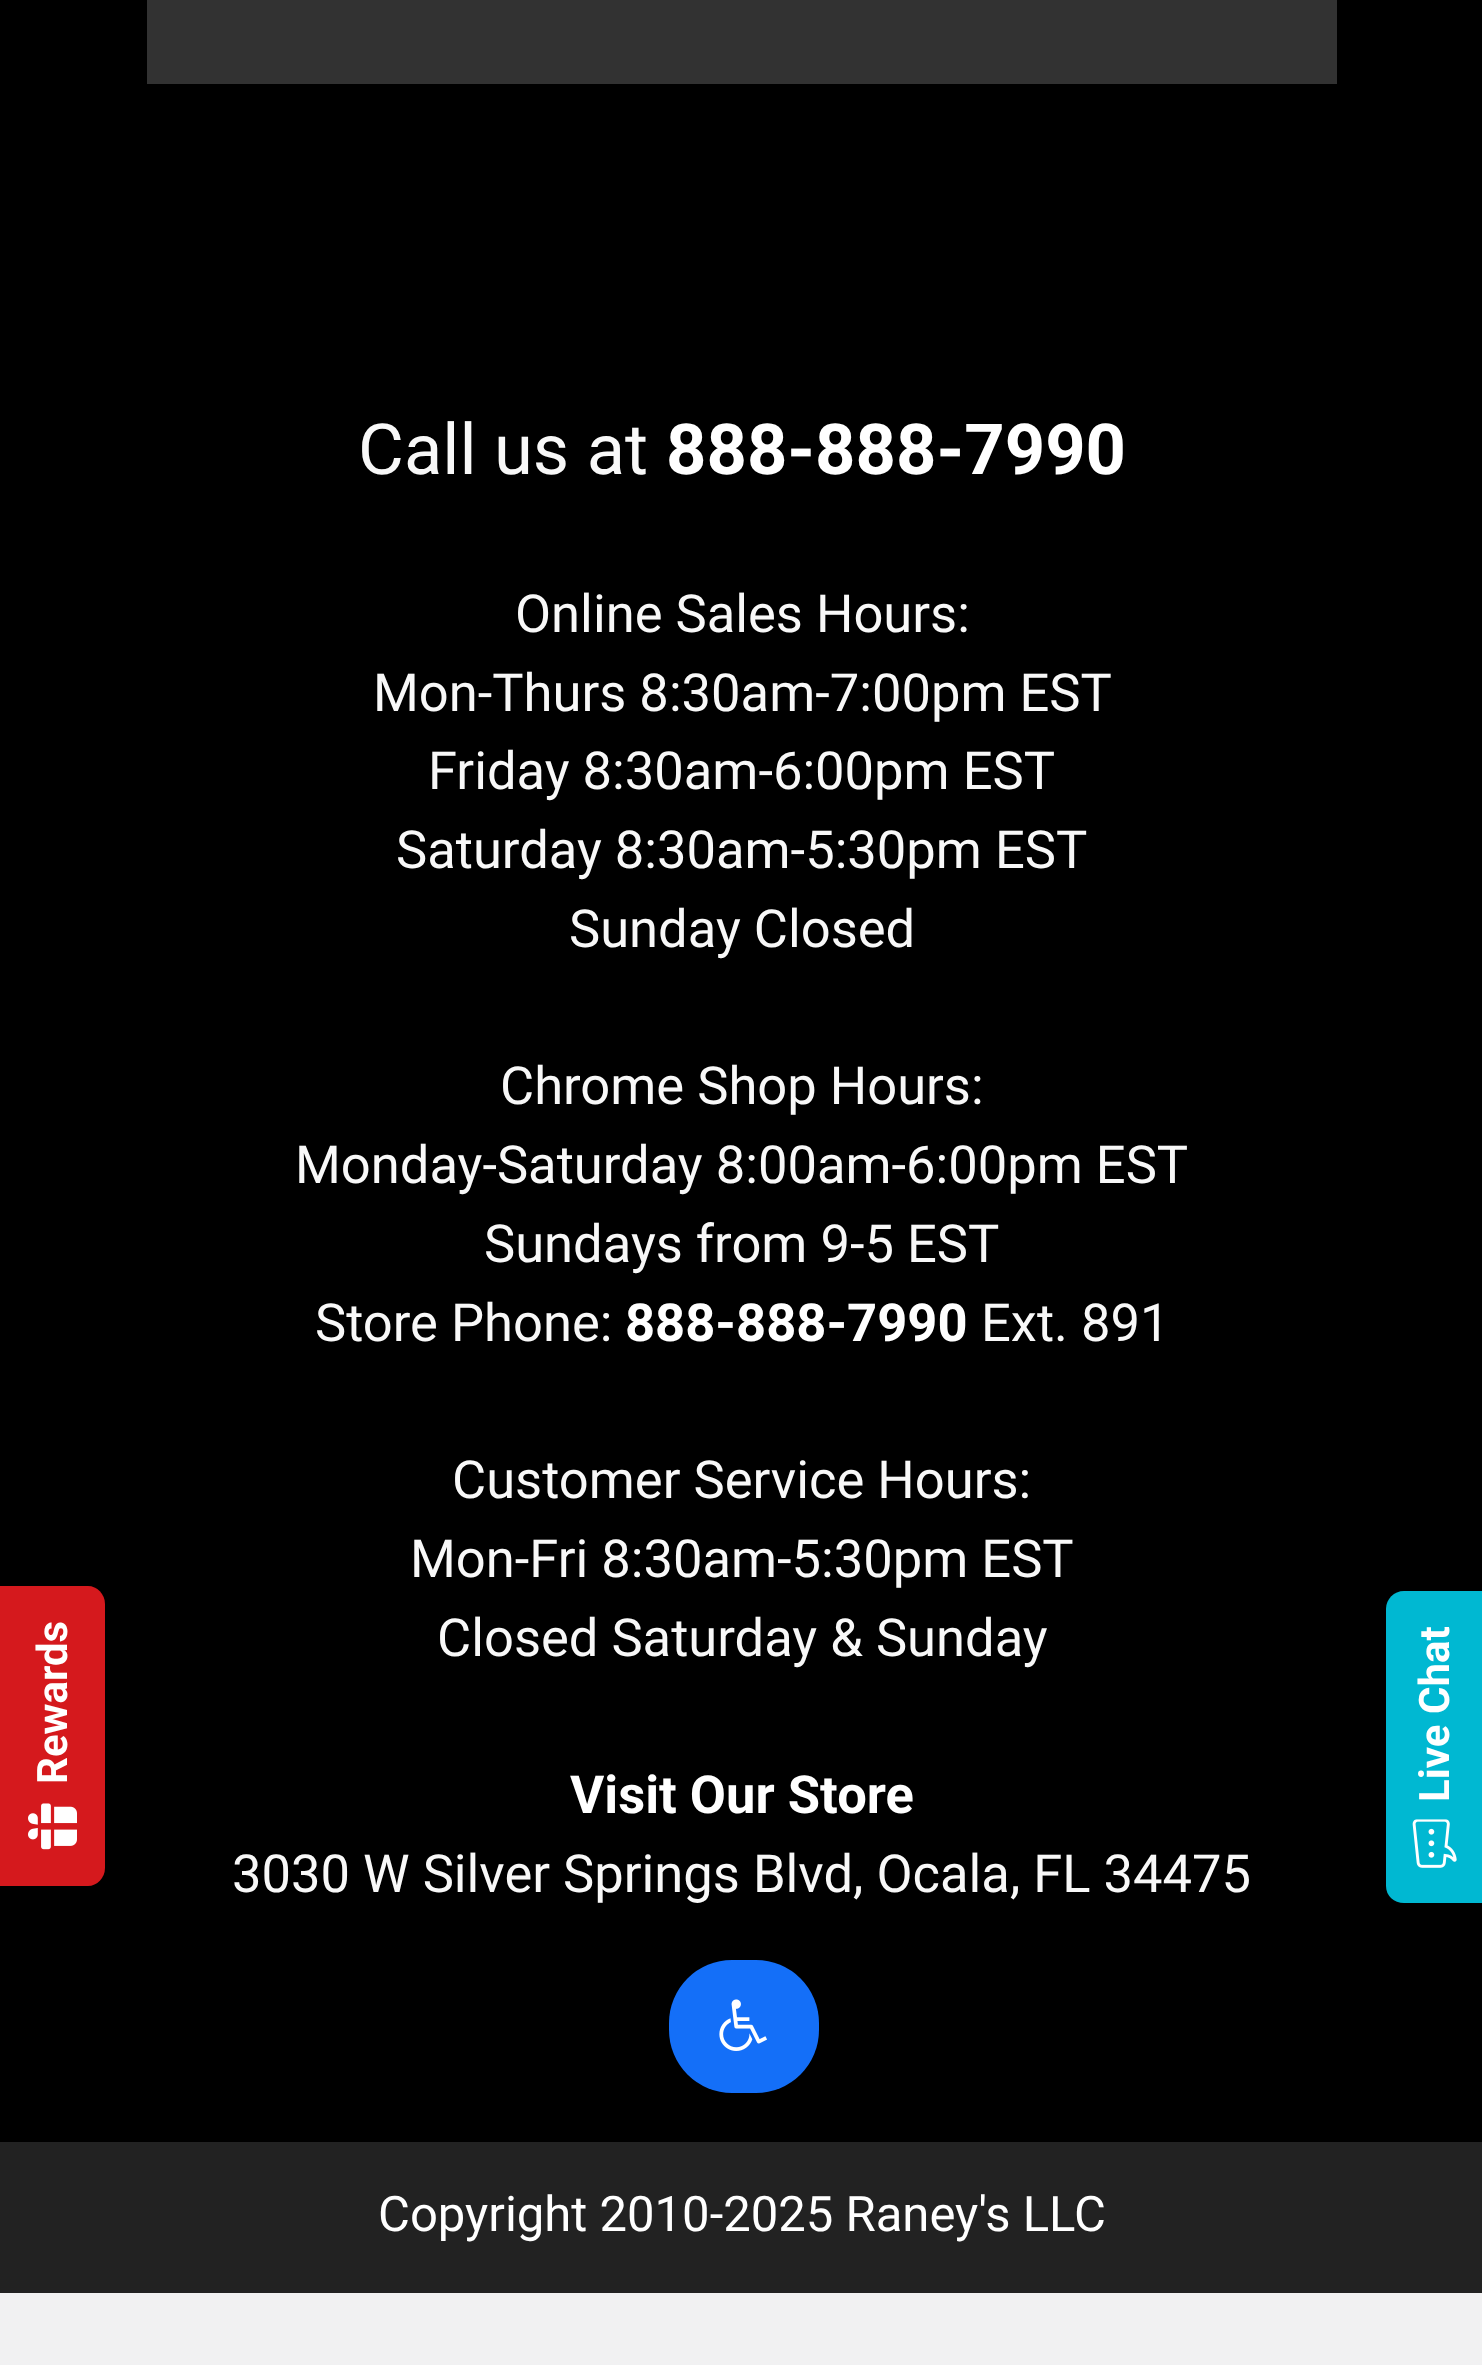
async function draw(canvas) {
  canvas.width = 1482
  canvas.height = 2365
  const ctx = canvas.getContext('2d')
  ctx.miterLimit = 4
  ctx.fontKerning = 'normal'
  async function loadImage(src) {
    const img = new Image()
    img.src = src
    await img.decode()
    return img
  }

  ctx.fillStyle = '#f1f1f2'
  ctx.fillRect(0, 0, 1482, 2365)
  ctx.fillStyle = '#000'
  ctx.fillRect(0, 0, 1482, 2142)
  ctx.fillStyle = '#d5191d'
  ctx.beginPath()
  ctx.moveTo(0, 1886)
  ctx.lineTo(0, 1586)
  ctx.lineTo(88, 1586)
  ctx.bezierCurveTo(97, 1586, 105, 1594, 105, 1604)
  ctx.lineTo(105, 1868)
  ctx.bezierCurveTo(105, 1878, 97, 1886, 88, 1886)
  ctx.closePath()
  ctx.fill()
  ctx.font = 'bold 42px Roboto'
  ctx.fillStyle = '#fff'
  ctx.save()
  ctx.translate(67, 1784)
  ctx.rotate(-90 * Math.PI / 180)
  ctx.fillText('Rewards', 0, 0)
  ctx.restore()
  ctx.drawImage(await loadImage('image0.png'), 28, 1803, 49, 47)
  ctx.fillStyle = '#323232'
  ctx.fillRect(147, 0, 1190, 84)
  ctx.font = '70.5px Roboto'
  ctx.fillStyle = '#f8f8f8'
  ctx.fillText('Call us at', 358, 474)
  ctx.font = 'bold 70.5px Roboto'
  ctx.fillStyle = '#fff'
  ctx.fillText('888-888-7990', 666, 474)
  ctx.font = '52.5px Roboto'
  ctx.fillStyle = '#f8f8f8'
  ctx.fillText('Online Sales Hours:', 515, 632)
  ctx.fillText('Mon-Thurs 8:30am-7:00pm EST', 373, 711)
  ctx.fillText('Friday 8:30am-6:00pm EST', 428, 789)
  ctx.fillText('Saturday 8:30am-5:30pm EST', 396, 868)
  ctx.fillText('Sunday Closed', 569, 947)
  ctx.fillText('Chrome Shop Hours:', 500, 1104)
  ctx.fillText('Monday-Saturday 8:00am-6:00pm EST', 295, 1183)
  ctx.fillText('Sundays from 9-5 EST', 484, 1262)
  ctx.fillText('Store Phone:', 315, 1341)
  ctx.font = 'bold 52.5px Roboto'
  ctx.fillStyle = '#fff'
  ctx.fillText('888-888-7990', 625, 1341)
  ctx.font = '52.5px Roboto'
  ctx.fillStyle = '#f8f8f8'
  ctx.fillText('Ext. 891', 981, 1341)
  ctx.fillText('Customer Service Hours:', 452, 1498)
  ctx.fillText('Mon-Fri 8:30am-5:30pm EST', 410, 1577)
  ctx.fillText('Closed Saturday & Sunday', 437, 1656)
  ctx.font = 'bold 52.5px Roboto'
  ctx.fillStyle = '#fff'
  ctx.fillText('Visit Our Store', 570, 1813)
  ctx.font = '52.5px Roboto'
  ctx.fillStyle = '#f8f8f8'
  ctx.fillText('3030 W Silver Springs Blvd, Ocala, FL 34475', 232, 1892)
  ctx.fillStyle = '#146ff8'
  ctx.beginPath()
  ctx.roundRect(669, 1960, 150, 133, 63)
  ctx.fill()
  ctx.drawImage(await loadImage('image1.png'), 719, 1999, 48, 52)
  ctx.fillStyle = '#222'
  ctx.fillRect(0, 2142, 1482, 151)
  ctx.font = '49px Roboto'
  ctx.fillStyle = '#fff'
  ctx.fillText('Copyright 2010-2025 Raney\'s LLC', 378, 2231)
  ctx.fillStyle = '#00b8d2'
  ctx.beginPath()
  ctx.moveTo(1386, 1886)
  ctx.lineTo(1386, 1609)
  ctx.bezierCurveTo(1386, 1599, 1394, 1591, 1404, 1591)
  ctx.lineTo(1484, 1591)
  ctx.lineTo(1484, 1903)
  ctx.lineTo(1404, 1903)
  ctx.bezierCurveTo(1394, 1903, 1386, 1896, 1386, 1886)
  ctx.closePath()
  ctx.fill()
  ctx.font = 'bold 42px Roboto'
  ctx.fillStyle = '#fff'
  ctx.save()
  ctx.translate(1449, 1802)
  ctx.rotate(-90 * Math.PI / 180)
  ctx.fillText('Live Chat', 0, 0)
  ctx.restore()
  ctx.drawImage(await loadImage('image2.png'), 1412, 1819, 45, 49)
}

draw(document.querySelector('canvas'))
